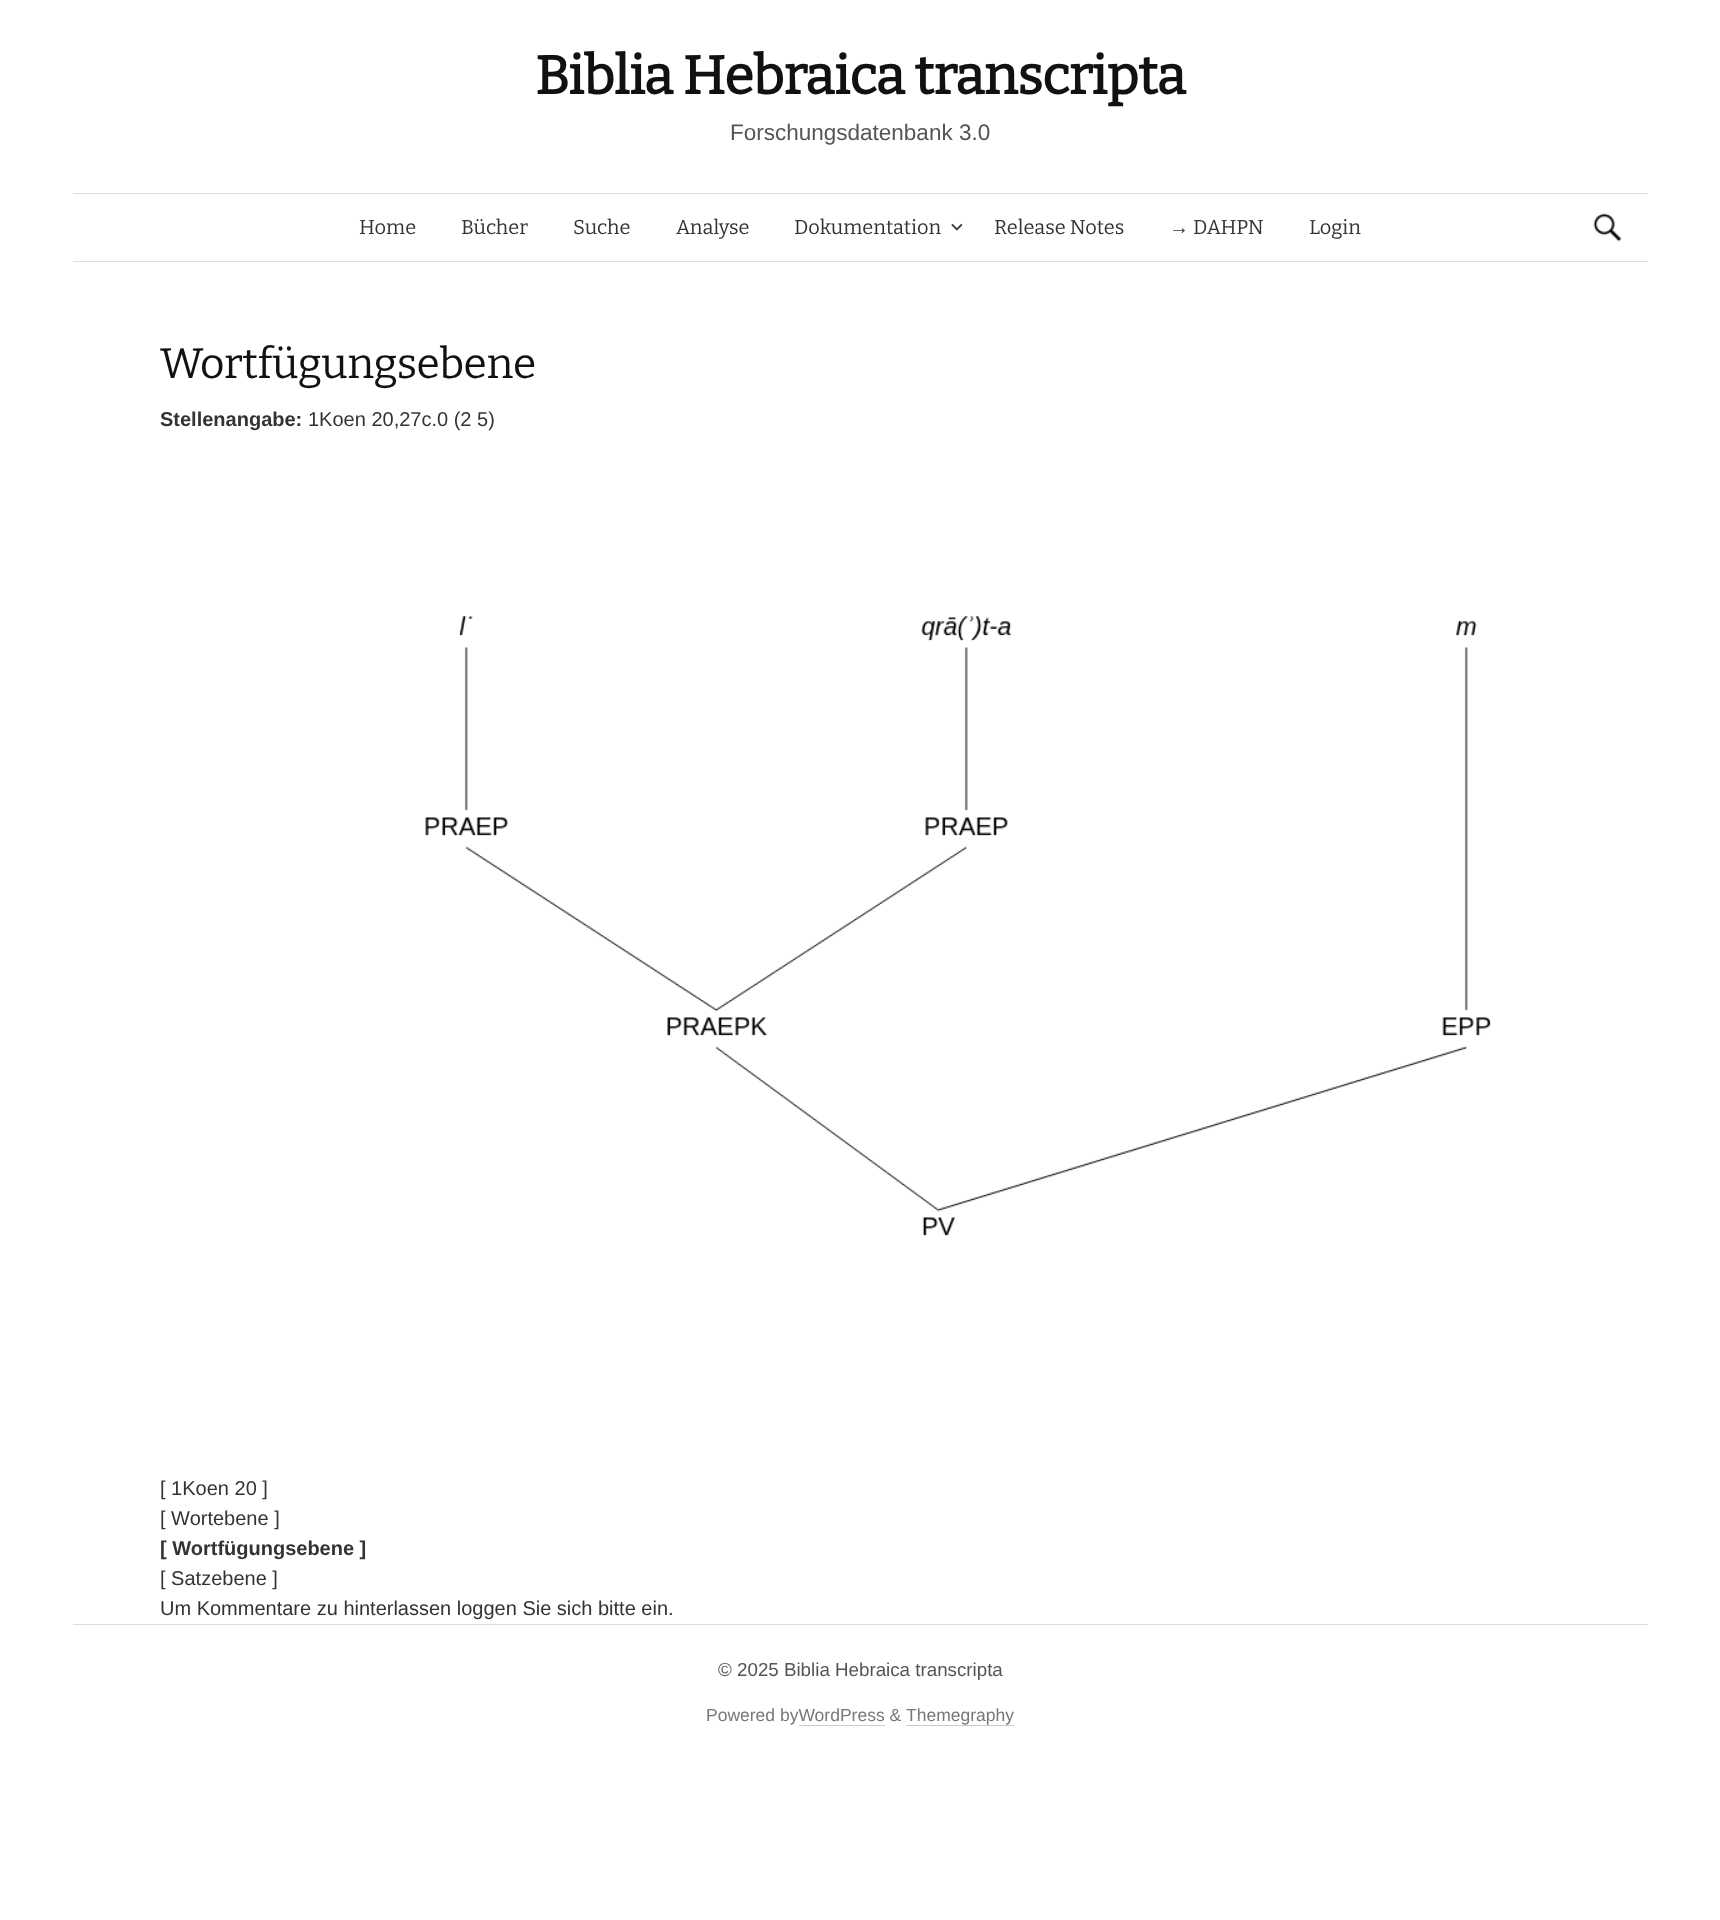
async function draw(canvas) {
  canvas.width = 1720
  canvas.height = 1920
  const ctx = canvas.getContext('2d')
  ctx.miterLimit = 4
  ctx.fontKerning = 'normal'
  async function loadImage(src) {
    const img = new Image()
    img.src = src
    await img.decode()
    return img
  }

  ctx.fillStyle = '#fff'
  ctx.fillRect(0, 0, 1720, 1920)
  ctx.letterSpacing = '-0.55px'
  ctx.font = 'bold 53.75px Bitter'
  ctx.fillStyle = '#111'
  ctx.fillText('Biblia Hebraica transcripta', 535, 94)
  ctx.letterSpacing = '0px'
  ctx.font = '22.5px Liberation Sans'
  ctx.fillStyle = '#555'
  ctx.fillText('Forschungsdatenbank 3.0', 730, 140)
  ctx.fillStyle = '#ddd'
  ctx.fillRect(73, 261, 1575, 1)
  ctx.fillRect(73, 193, 1575, 1)
  ctx.font = '100 20px Bitter'
  ctx.fillStyle = '#333'
  ctx.fillText('Home', 359, 234)
  ctx.fillText('Bücher', 461, 234)
  ctx.fillText('Suche', 573, 234)
  ctx.fillText('Analyse', 676, 234)
  ctx.fillText('Dokumentation', 794, 234)
  ctx.drawImage(await loadImage('image0.png'), 951, 223, 12, 8)
  ctx.fillText('Release Notes', 994, 234)
  ctx.font = '20px Liberation Serif'
  ctx.fillText('→', 1169, 234)
  ctx.font = '100 20px Bitter'
  ctx.fillText('DAHPN', 1193, 234)
  ctx.fillText('Login', 1309, 234)
  ctx.drawImage(await loadImage('image1.png'), 1593, 213, 29, 29)
  ctx.letterSpacing = '-0.4px'
  ctx.font = '100 42.5px Bitter'
  ctx.fillStyle = '#111'
  ctx.fillText('Wortfügungsebene', 160, 378)
  ctx.letterSpacing = '0px'
  ctx.font = 'bold 20px Liberation Sans'
  ctx.fillStyle = '#333'
  ctx.fillText('Stellenangabe:', 160, 426)
  ctx.font = '20px Liberation Sans'
  ctx.fillText('1Koen 20,27c.0 (2 5)', 308, 426)
  ctx.drawImage(await loadImage('image2.png'), 425, 616, 1066, 620)
  ctx.fillText('[ 1Koen 20 ]', 160, 1495)
  ctx.fillText('[ Wortebene ]', 160, 1525)
  ctx.font = 'bold 20px Liberation Sans'
  ctx.fillText('[ Wortfügungsebene ]', 160, 1555)
  ctx.font = '20px Liberation Sans'
  ctx.fillText('[ Satzebene ]', 160, 1585)
  ctx.fillText('Um Kommentare zu hinterlassen loggen Sie sich bitte ein.', 160, 1615)
  ctx.fillStyle = '#ddd'
  ctx.fillRect(73, 1624, 1575, 1)
  ctx.font = '18.75px Liberation Sans'
  ctx.fillStyle = '#555'
  ctx.fillText('© 2025 Biblia Hebraica transcripta', 718, 1676)
  ctx.font = '17.5px Liberation Sans'
  ctx.fillStyle = '#777'
  ctx.fillText('Powered byWordPress &', 706, 1721)
  ctx.fillText('Themegraphy', 906, 1721)
  ctx.fillStyle = '#ccc'
  ctx.fillRect(906, 1725, 108, 1)
  ctx.fillRect(799, 1725, 86, 1)
}

draw(document.querySelector('canvas'))
